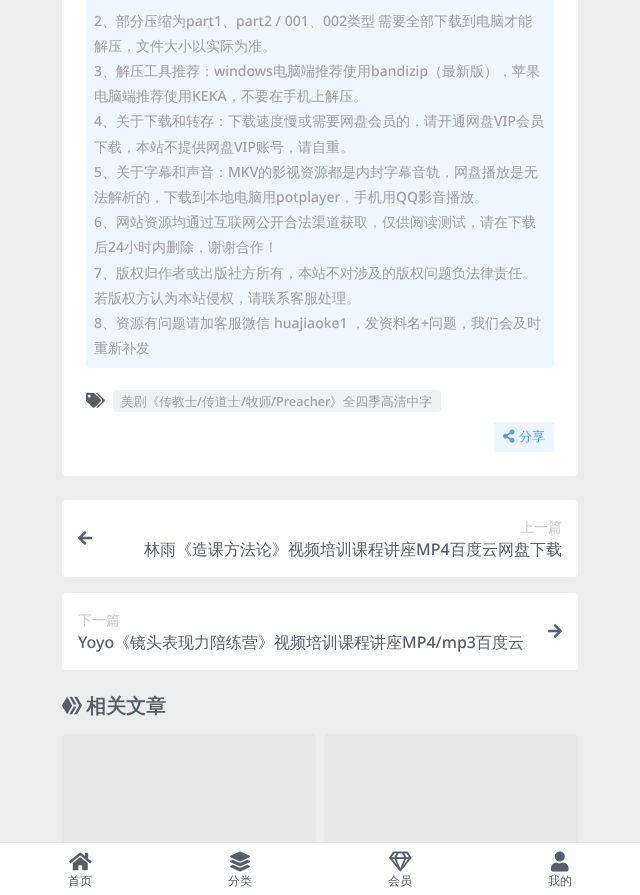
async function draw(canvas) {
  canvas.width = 640
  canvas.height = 895
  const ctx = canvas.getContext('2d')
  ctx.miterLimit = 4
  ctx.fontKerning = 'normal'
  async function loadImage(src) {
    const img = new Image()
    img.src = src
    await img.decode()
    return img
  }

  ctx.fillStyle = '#ededed'
  ctx.fillRect(0, 0, 640, 895)
  ctx.fillStyle = '#fff'
  ctx.beginPath()
  ctx.roundRect(62, -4, 516, 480, 4)
  ctx.fill()
  ctx.fillStyle = '#eef6ff'
  ctx.beginPath()
  ctx.roundRect(86, -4, 468, 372, 4)
  ctx.fill()
  ctx.font = '500 14px Noto Sans'
  ctx.fillStyle = '#a1a1a8'
  ctx.fillText('2', 94, 26)
  ctx.font = '500 14px WenQuanYi Zen Hei'
  ctx.fillText('、部分压缩为', 102, 26)
  ctx.font = '500 14px Noto Sans'
  ctx.fillText('part1', 186, 26)
  ctx.font = '500 14px WenQuanYi Zen Hei'
  ctx.fillText('、', 222, 26)
  ctx.font = '500 14px Noto Sans'
  ctx.fillText('part2 / 001', 236, 26)
  ctx.font = '500 14px WenQuanYi Zen Hei'
  ctx.fillText('、', 309, 26)
  ctx.font = '500 14px Noto Sans'
  ctx.fillText('002', 323, 26)
  ctx.font = '500 14px WenQuanYi Zen Hei'
  ctx.fillText('类型', 347, 26)
  ctx.fillText('需要全部下载到电脑才能', 378, 26)
  ctx.fillText('解压，文件大小以实际为准。', 94, 51)
  ctx.font = '500 14px Noto Sans'
  ctx.fillText('3', 94, 76)
  ctx.font = '500 14px WenQuanYi Zen Hei'
  ctx.fillText('、解压工具推荐：', 102, 76)
  ctx.font = '500 14px Noto Sans'
  ctx.fillText('windows', 214, 76)
  ctx.font = '500 14px WenQuanYi Zen Hei'
  ctx.fillText('电脑端推荐使用', 273, 76)
  ctx.font = '500 14px Noto Sans'
  ctx.fillText('bandizip', 371, 76)
  ctx.font = '500 14px WenQuanYi Zen Hei'
  ctx.fillText('（最新版），苹果', 428, 76)
  ctx.fillText('电脑端推荐使用', 94, 101)
  ctx.font = '500 14px Noto Sans'
  ctx.fillText('KEKA', 192, 101)
  ctx.font = '500 14px WenQuanYi Zen Hei'
  ctx.fillText('，不要在手机上解压。', 227, 101)
  ctx.font = '500 14px Noto Sans'
  ctx.fillText('4', 94, 126)
  ctx.font = '500 14px WenQuanYi Zen Hei'
  ctx.fillText('、关于下载和转存：下载速度慢或需要网盘会员的，请开通网盘', 102, 126)
  ctx.font = '500 14px Noto Sans'
  ctx.fillText('VIP', 494, 126)
  ctx.font = '500 14px WenQuanYi Zen Hei'
  ctx.fillText('会员', 516, 126)
  ctx.fillText('下载，本站不提供网盘', 94, 152)
  ctx.font = '500 14px Noto Sans'
  ctx.fillText('VIP', 234, 152)
  ctx.font = '500 14px WenQuanYi Zen Hei'
  ctx.fillText('账号，请自重。', 256, 152)
  ctx.font = '500 14px Noto Sans'
  ctx.fillText('5', 94, 177)
  ctx.font = '500 14px WenQuanYi Zen Hei'
  ctx.fillText('、关于字幕和声音：', 102, 177)
  ctx.font = '500 14px Noto Sans'
  ctx.fillText('MKV', 228, 177)
  ctx.font = '500 14px WenQuanYi Zen Hei'
  ctx.fillText('的影视资源都是内封字幕音轨，网盘播放是无', 258, 177)
  ctx.fillText('法解析的，下载到本地电脑用', 94, 202)
  ctx.font = '500 14px Noto Sans'
  ctx.fillText('potplayer', 276, 202)
  ctx.font = '500 14px WenQuanYi Zen Hei'
  ctx.fillText('，手机用', 340, 202)
  ctx.font = '500 14px Noto Sans'
  ctx.fillText('QQ', 396, 202)
  ctx.font = '500 14px WenQuanYi Zen Hei'
  ctx.fillText('影音播放。', 418, 202)
  ctx.font = '500 14px Noto Sans'
  ctx.fillText('6', 94, 227)
  ctx.font = '500 14px WenQuanYi Zen Hei'
  ctx.fillText('、网站资源均通过互联网公开合法渠道获取，仅供阅读测试，请在下载', 102, 227)
  ctx.fillText('后', 94, 252)
  ctx.font = '500 14px Noto Sans'
  ctx.fillText('24', 108, 252)
  ctx.font = '500 14px WenQuanYi Zen Hei'
  ctx.fillText('小时内删除，谢谢合作！', 124, 252)
  ctx.font = '500 14px Noto Sans'
  ctx.fillText('7', 94, 278)
  ctx.font = '500 14px WenQuanYi Zen Hei'
  ctx.fillText('、版权归作者或出版社方所有，本站不对涉及的版权问题负法律责任。', 102, 278)
  ctx.fillText('若版权方认为本站侵权，请联系客服处理。', 94, 303)
  ctx.font = '500 14px Noto Sans'
  ctx.fillText('8', 94, 328)
  ctx.font = '500 14px WenQuanYi Zen Hei'
  ctx.fillText('、资源有问题请加客服微信', 102, 328)
  ctx.font = '500 14px Noto Sans'
  ctx.fillText('huajiaoke1', 274, 328)
  ctx.font = '500 14px WenQuanYi Zen Hei'
  ctx.fillText('，发资料名', 351, 328)
  ctx.font = '500 14px Noto Sans'
  ctx.fillText('+', 421, 328)
  ctx.font = '500 14px WenQuanYi Zen Hei'
  ctx.fillText('问题，我们会及时', 429, 328)
  ctx.fillText('重新补发', 94, 353)
  ctx.drawImage(await loadImage('image0.png'), 86, 392, 19, 16)
  ctx.fillStyle = '#f0f1f3'
  ctx.beginPath()
  ctx.roundRect(113, 390, 328, 22, 4)
  ctx.fill()
  ctx.font = '500 12.75px WenQuanYi Zen Hei'
  ctx.fillStyle = '#a1a1a8'
  ctx.fillText('美剧《传教士', 121, 406)
  ctx.font = '500 12.75px Noto Sans'
  ctx.fillText('/', 197, 406)
  ctx.font = '500 12.75px WenQuanYi Zen Hei'
  ctx.fillText('传道士', 202, 406)
  ctx.font = '500 12.75px Noto Sans'
  ctx.fillText('/', 241, 406)
  ctx.font = '500 12.75px WenQuanYi Zen Hei'
  ctx.fillText('牧师', 246, 406)
  ctx.font = '500 12.75px Noto Sans'
  ctx.fillText('/Preacher', 271, 406)
  ctx.font = '500 12.75px WenQuanYi Zen Hei'
  ctx.fillText('》全四季高清中字', 330, 406)
  ctx.fillStyle = '#edf5fe'
  ctx.beginPath()
  ctx.roundRect(494, 422, 60, 30, 3)
  ctx.fill()
  ctx.drawImage(await loadImage('image1.png'), 503, 429, 12, 14)
  ctx.font = '500 13px WenQuanYi Zen Hei'
  ctx.fillStyle = '#4f9ef8'
  ctx.fillText('分享', 519, 441)
  ctx.fillStyle = '#fff'
  ctx.beginPath()
  ctx.roundRect(62, 500, 516, 77, 4)
  ctx.fill()
  ctx.drawImage(await loadImage('image2.png'), 78, 531, 14, 14)
  ctx.font = '500 14px WenQuanYi Zen Hei'
  ctx.fillStyle = '#ccc'
  ctx.fillText('上一篇', 520, 532)
  ctx.font = '500 16px WenQuanYi Zen Hei'
  ctx.fillStyle = '#595d69'
  ctx.fillText('林雨《造课方法论》视频培训课程讲座', 144, 555)
  ctx.font = '500 16px Noto Sans'
  ctx.fillText('MP4', 416, 555)
  ctx.font = '500 16px WenQuanYi Zen Hei'
  ctx.fillText('百度云网盘下载', 450, 555)
  ctx.fillStyle = '#fff'
  ctx.beginPath()
  ctx.roundRect(62, 593, 516, 77, 4)
  ctx.fill()
  ctx.font = '500 14px WenQuanYi Zen Hei'
  ctx.fillStyle = '#ccc'
  ctx.fillText('下一篇', 78, 625)
  ctx.font = '500 16px Noto Sans'
  ctx.fillStyle = '#595d69'
  ctx.fillText('Yoyo', 78, 648)
  ctx.font = '500 16px WenQuanYi Zen Hei'
  ctx.fillText('《镜头表现力陪练营》视频培训课程讲座', 114, 648)
  ctx.font = '500 16px Noto Sans'
  ctx.fillText('MP4/mp3', 402, 648)
  ctx.font = '500 16px WenQuanYi Zen Hei'
  ctx.fillText('百度云', 476, 648)
  ctx.drawImage(await loadImage('image3.png'), 548, 624, 14, 14)
  ctx.drawImage(await loadImage('image4.png'), 62, 696, 20, 19)
  ctx.font = 'bold 20px WenQuanYi Zen Hei'
  ctx.fillText('相关文章', 86, 713)
  ctx.fillStyle = '#e7e7e7'
  ctx.beginPath()
  ctx.moveTo(67, 734)
  ctx.lineTo(311, 734)
  ctx.bezierCurveTo(314, 734, 316, 736, 316, 739)
  ctx.lineTo(316, 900)
  ctx.lineTo(62, 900)
  ctx.lineTo(62, 739)
  ctx.bezierCurveTo(62, 736, 64, 734, 67, 734)
  ctx.closePath()
  ctx.fill()
  ctx.beginPath()
  ctx.moveTo(329, 734)
  ctx.lineTo(573, 734)
  ctx.bezierCurveTo(576, 734, 578, 736, 578, 739)
  ctx.lineTo(578, 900)
  ctx.lineTo(324, 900)
  ctx.lineTo(324, 739)
  ctx.bezierCurveTo(324, 736, 326, 734, 329, 734)
  ctx.closePath()
  ctx.fill()
  ctx.fillStyle = '#fff'
  ctx.fillRect(0, 842, 640, 53)
  ctx.fillStyle = '#e6e6e6'
  ctx.beginPath()
  ctx.roundRect(0, 842, 640, 1, 0.5)
  ctx.fill()
  ctx.drawImage(await loadImage('image5.png'), 69, 852, 23, 19)
  ctx.font = '500 12px WenQuanYi Zen Hei'
  ctx.fillStyle = '#595d69'
  ctx.fillText('首页', 68, 885)
  ctx.drawImage(await loadImage('image6.png'), 230, 851, 20, 21)
  ctx.fillText('分类', 228, 885)
  ctx.drawImage(await loadImage('image7.png'), 389, 851, 23, 21)
  ctx.fillText('会员', 388, 885)
  ctx.drawImage(await loadImage('image8.png'), 551, 851, 18, 21)
  ctx.fillText('我的', 548, 885)
}

draw(document.querySelector('canvas'))
